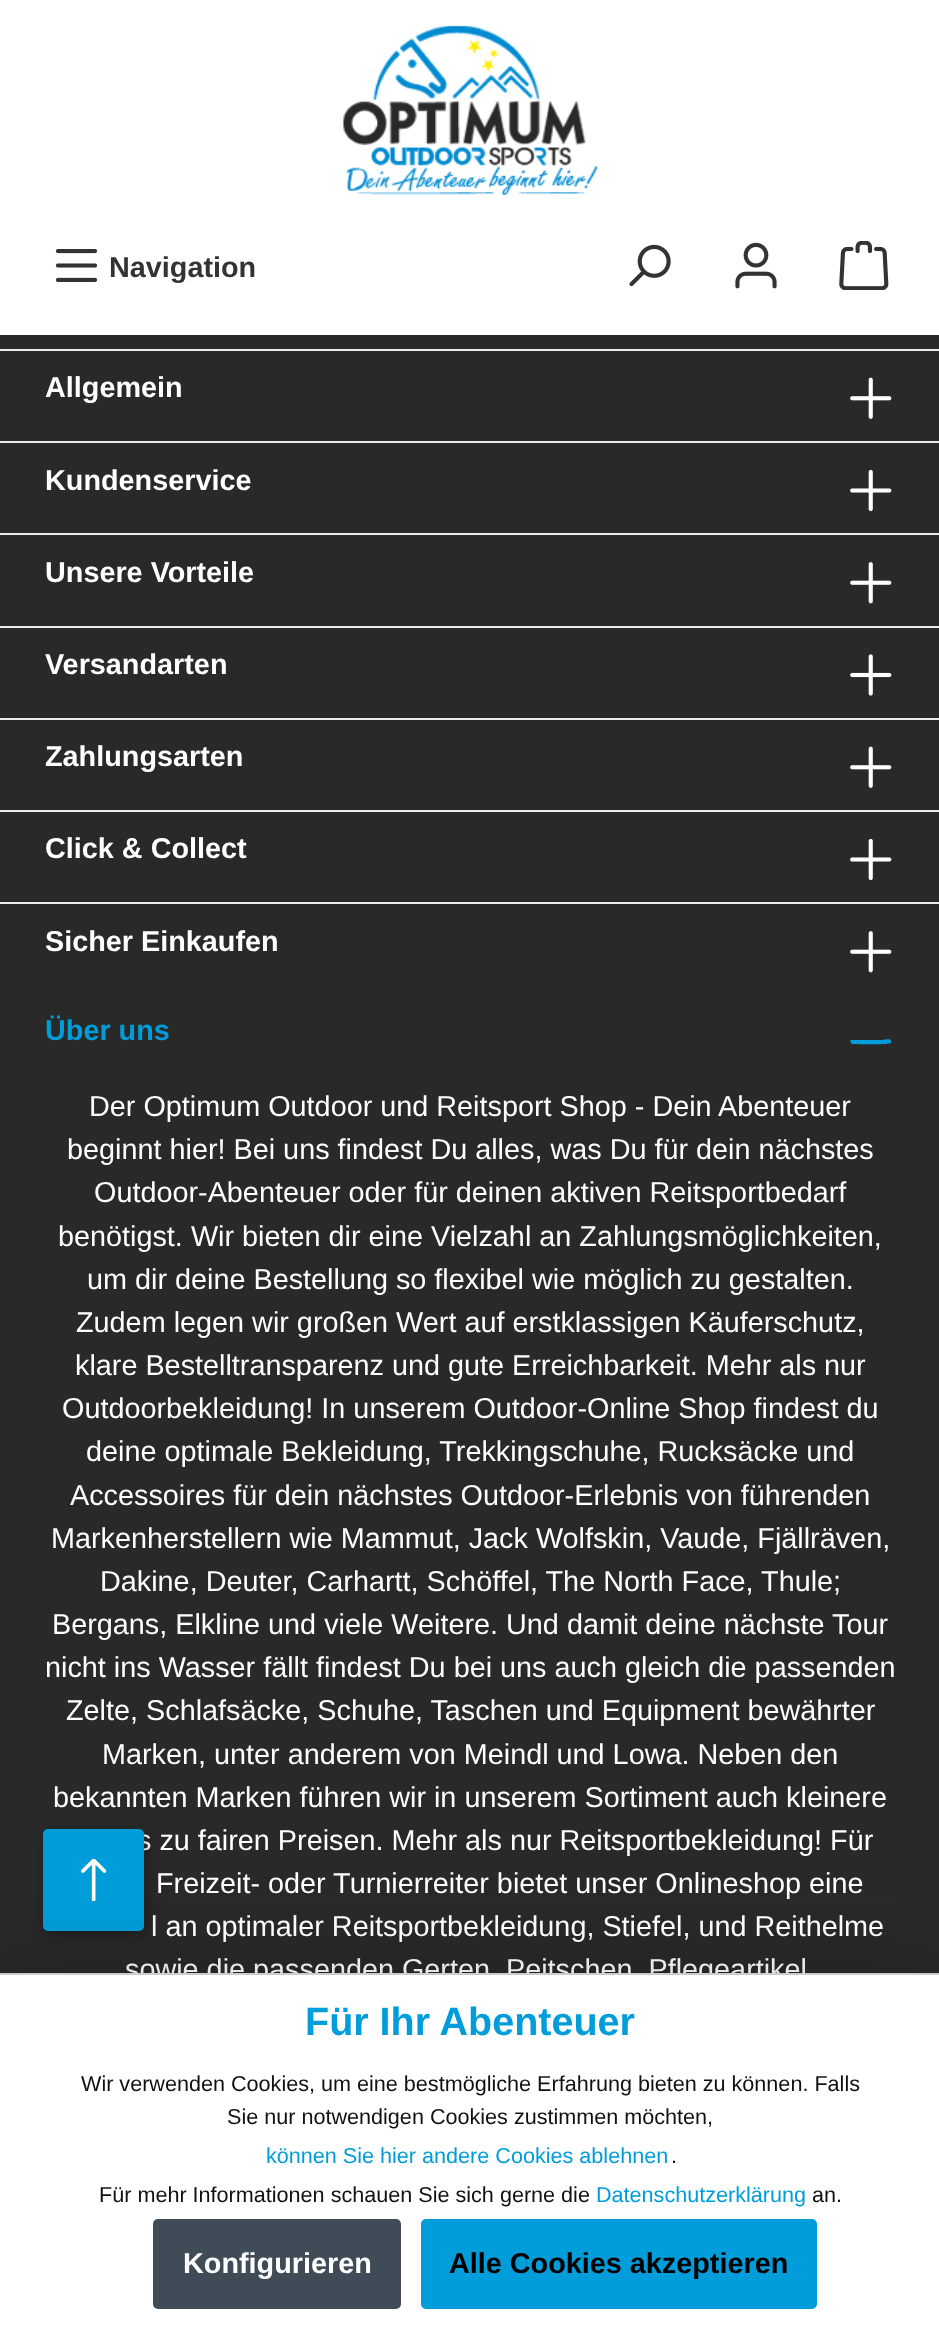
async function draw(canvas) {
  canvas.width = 939
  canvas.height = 2336
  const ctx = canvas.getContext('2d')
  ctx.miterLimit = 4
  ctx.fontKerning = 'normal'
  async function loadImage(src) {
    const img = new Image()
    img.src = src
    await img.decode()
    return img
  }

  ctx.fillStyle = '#292929'
  ctx.fillRect(0, 0, 939, 2336)
  ctx.fillStyle = '#fff'
  ctx.fillRect(0, 0, 939, 335)
  ctx.drawImage(await loadImage('image0.png'), 343, 25, 255, 170)
  ctx.drawImage(await loadImage('image1.png'), 55, 249, 43, 33)
  ctx.font = 'bold 28.8px Liberation Sans'
  ctx.fillStyle = '#333'
  ctx.fillText('Navigation', 109, 277)
  ctx.drawImage(await loadImage('image2.png'), 629, 244, 42, 43)
  ctx.drawImage(await loadImage('image3.png'), 735, 242, 42, 47)
  ctx.drawImage(await loadImage('image4.png'), 839, 241, 50, 49)
  ctx.fillStyle = '#eaeaf0'
  ctx.fillRect(0, 349, 939, 2)
  ctx.fillRect(0, 441, 939, 2)
  ctx.fillStyle = '#fff'
  ctx.fillText('Allgemein', 45, 397)
  ctx.drawImage(await loadImage('image5.png'), 850, 377, 42, 42)
  ctx.fillStyle = '#eaeaf0'
  ctx.fillRect(0, 533, 939, 2)
  ctx.fillStyle = '#fff'
  ctx.fillText('Kundenservice', 45, 490)
  ctx.drawImage(await loadImage('image6.png'), 850, 469, 42, 43)
  ctx.fillStyle = '#eaeaf0'
  ctx.fillRect(0, 626, 939, 2)
  ctx.fillStyle = '#fff'
  ctx.fillText('Unsere Vorteile', 45, 582)
  ctx.drawImage(await loadImage('image7.png'), 850, 562, 42, 42)
  ctx.fillStyle = '#eaeaf0'
  ctx.fillRect(0, 718, 939, 2)
  ctx.fillStyle = '#fff'
  ctx.fillText('Versandarten', 45, 674)
  ctx.drawImage(await loadImage('image8.png'), 850, 654, 42, 42)
  ctx.fillStyle = '#eaeaf0'
  ctx.fillRect(0, 810, 939, 2)
  ctx.fillStyle = '#fff'
  ctx.fillText('Zahlungsarten', 45, 766)
  ctx.drawImage(await loadImage('image5.png'), 850, 746, 42, 42)
  ctx.fillStyle = '#eaeaf0'
  ctx.fillRect(0, 902, 939, 2)
  ctx.fillStyle = '#fff'
  ctx.fillText('Click & Collect', 45, 858)
  ctx.drawImage(await loadImage('image6.png'), 850, 838, 42, 43)
  ctx.fillText('Sicher Einkaufen', 45, 951)
  ctx.drawImage(await loadImage('image7.png'), 850, 931, 42, 42)
  ctx.fillStyle = '#009dda'
  ctx.fillText('Über uns', 45, 1040)
  ctx.beginPath()
  ctx.moveTo(852, 1044)
  ctx.bezierCurveTo(857, 1044, 889, 1045, 891, 1043)
  ctx.lineTo(891, 1041)
  ctx.bezierCurveTo(891, 1038, 884, 1040, 883, 1040)
  ctx.lineTo(851, 1040)
  ctx.bezierCurveTo(850, 1040, 850, 1042, 851, 1043)
  ctx.closePath()
  ctx.fill('evenodd')
  ctx.font = '28.8px Liberation Sans'
  ctx.fillStyle = '#fff'
  ctx.fillText('Der Optimum Outdoor und Reitsport Shop - Dein Abenteuer', 89, 1116)
  ctx.fillText('beginnt hier! Bei uns findest Du alles, was Du für dein nächstes', 67, 1159)
  ctx.fillText('Outdoor-Abenteuer oder für deinen aktiven Reitsportbedarf', 94, 1202)
  ctx.fillText('benötigst. Wir bieten dir eine Vielzahl an Zahlungsmöglichkeiten,', 58, 1246)
  ctx.fillText('um dir deine Bestellung so flexibel wie möglich zu gestalten.', 87, 1289)
  ctx.fillText('Zudem legen wir großen Wert auf erstklassigen Käuferschutz,', 76, 1332)
  ctx.fillText('klare Bestelltransparenz und gute Erreichbarkeit. Mehr als nur', 75, 1375)
  ctx.fillText('Outdoorbekleidung! In unserem Outdoor-Online Shop findest du', 62, 1418)
  ctx.fillText('deine optimale Bekleidung, Trekkingschuhe, Rucksäcke und', 86, 1461)
  ctx.fillText('Accessoires für dein nächstes Outdoor-Erlebnis von führenden', 70, 1505)
  ctx.fillText('Markenherstellern wie Mammut, Jack Wolfskin, Vaude, Fjällräven,', 51, 1548)
  ctx.fillText('Dakine, Deuter, Carhartt, Schöffel, The North Face, Thule;', 100, 1591)
  ctx.fillText('Bergans, Elkline und viele Weitere. Und damit deine nächste Tour', 52, 1634)
  ctx.fillText('nicht ins Wasser fällt findest Du bei uns auch gleich die passenden', 45, 1677)
  ctx.fillText('Zelte, Schlafsäcke, Schuhe, Taschen und Equipment bewährter', 66, 1720)
  ctx.fillText('Marken, unter anderem von Meindl und Lowa. Neben den', 102, 1764)
  ctx.fillText('bekannten Marken führen wir in unserem Sortiment auch kleinere', 53, 1807)
  ctx.fillText('s zu fairen Preisen. Mehr als nur Reitsportbekleidung! Für', 137, 1850)
  ctx.fillText('Freizeit- oder Turnierreiter bietet unser Onlineshop eine', 156, 1893)
  ctx.fillText('l an optimaler Reitsportbekleidung, Stiefel, und Reithelme', 151, 1936)
  ctx.fillText('sowie die passenden Gerten, Peitschen, Pflegeartikel', 125, 1979)
  ctx.fillStyle = '#0000004d'
  ctx.filter = 'blur(7px)'
  ctx.beginPath()
  ctx.roundRect(45, 1834, 101, 101, 5)
  ctx.fill()
  ctx.filter = 'none'
  ctx.fillStyle = '#009dda'
  ctx.beginPath()
  ctx.roundRect(44, 1830, 99, 100, 4)
  ctx.fill()
  ctx.strokeStyle = '#009dda'
  ctx.lineWidth = 2
  ctx.stroke()
  ctx.drawImage(await loadImage('image9.png'), 81, 1859, 26, 42)
  ctx.fillStyle = '#00000033'
  ctx.filter = 'blur(34px)'
  ctx.beginPath()
  ctx.rect(0, 1973, 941, 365)
  ctx.fill()
  ctx.filter = 'none'
  ctx.fillStyle = '#fff'
  ctx.fillRect(0, 1975, 939, 361)
  ctx.fillStyle = '#ccc'
  ctx.fillRect(0, 1973, 939, 2)
  ctx.font = 'bold 39.5px Liberation Sans'
  ctx.fillStyle = '#009dda'
  ctx.fillText('Für Ihr Abenteuer', 305, 2035)
  ctx.font = '21.6px Liberation Sans'
  ctx.fillStyle = '#111'
  ctx.fillText('Wir verwenden Cookies, um eine bestmögliche Erfahrung bieten zu können. Falls', 81, 2091)
  ctx.fillText('Sie nur notwendigen Cookies zustimmen möchten,', 227, 2124)
  ctx.fillStyle = '#009dda'
  ctx.fillText('können Sie hier andere Cookies ablehnen', 266, 2163)
  ctx.fillStyle = '#111'
  ctx.fillText('.', 671, 2163)
  ctx.fillText('Für mehr Informationen schauen Sie sich gerne die', 99, 2202)
  ctx.fillStyle = '#009dda'
  ctx.fillText('Datenschutzerklärung', 596, 2202)
  ctx.fillStyle = '#111'
  ctx.fillText('an.', 812, 2202)
  ctx.fillStyle = '#404b58'
  ctx.beginPath()
  ctx.roundRect(154, 2220, 246, 88, 4)
  ctx.fill()
  ctx.strokeStyle = '#404b58'
  ctx.stroke()
  ctx.font = 'bold 28.8px Liberation Sans'
  ctx.fillStyle = '#fff'
  ctx.fillText('Konfigurieren', 183, 2273)
  ctx.fillStyle = '#009dda'
  ctx.beginPath()
  ctx.roundRect(422, 2220, 394, 88, 4)
  ctx.fill()
  ctx.strokeStyle = '#009dda'
  ctx.stroke()
  ctx.fillStyle = '#000'
  ctx.fillText('Alle Cookies akzeptieren', 449, 2273)
}

draw(document.querySelector('canvas'))
